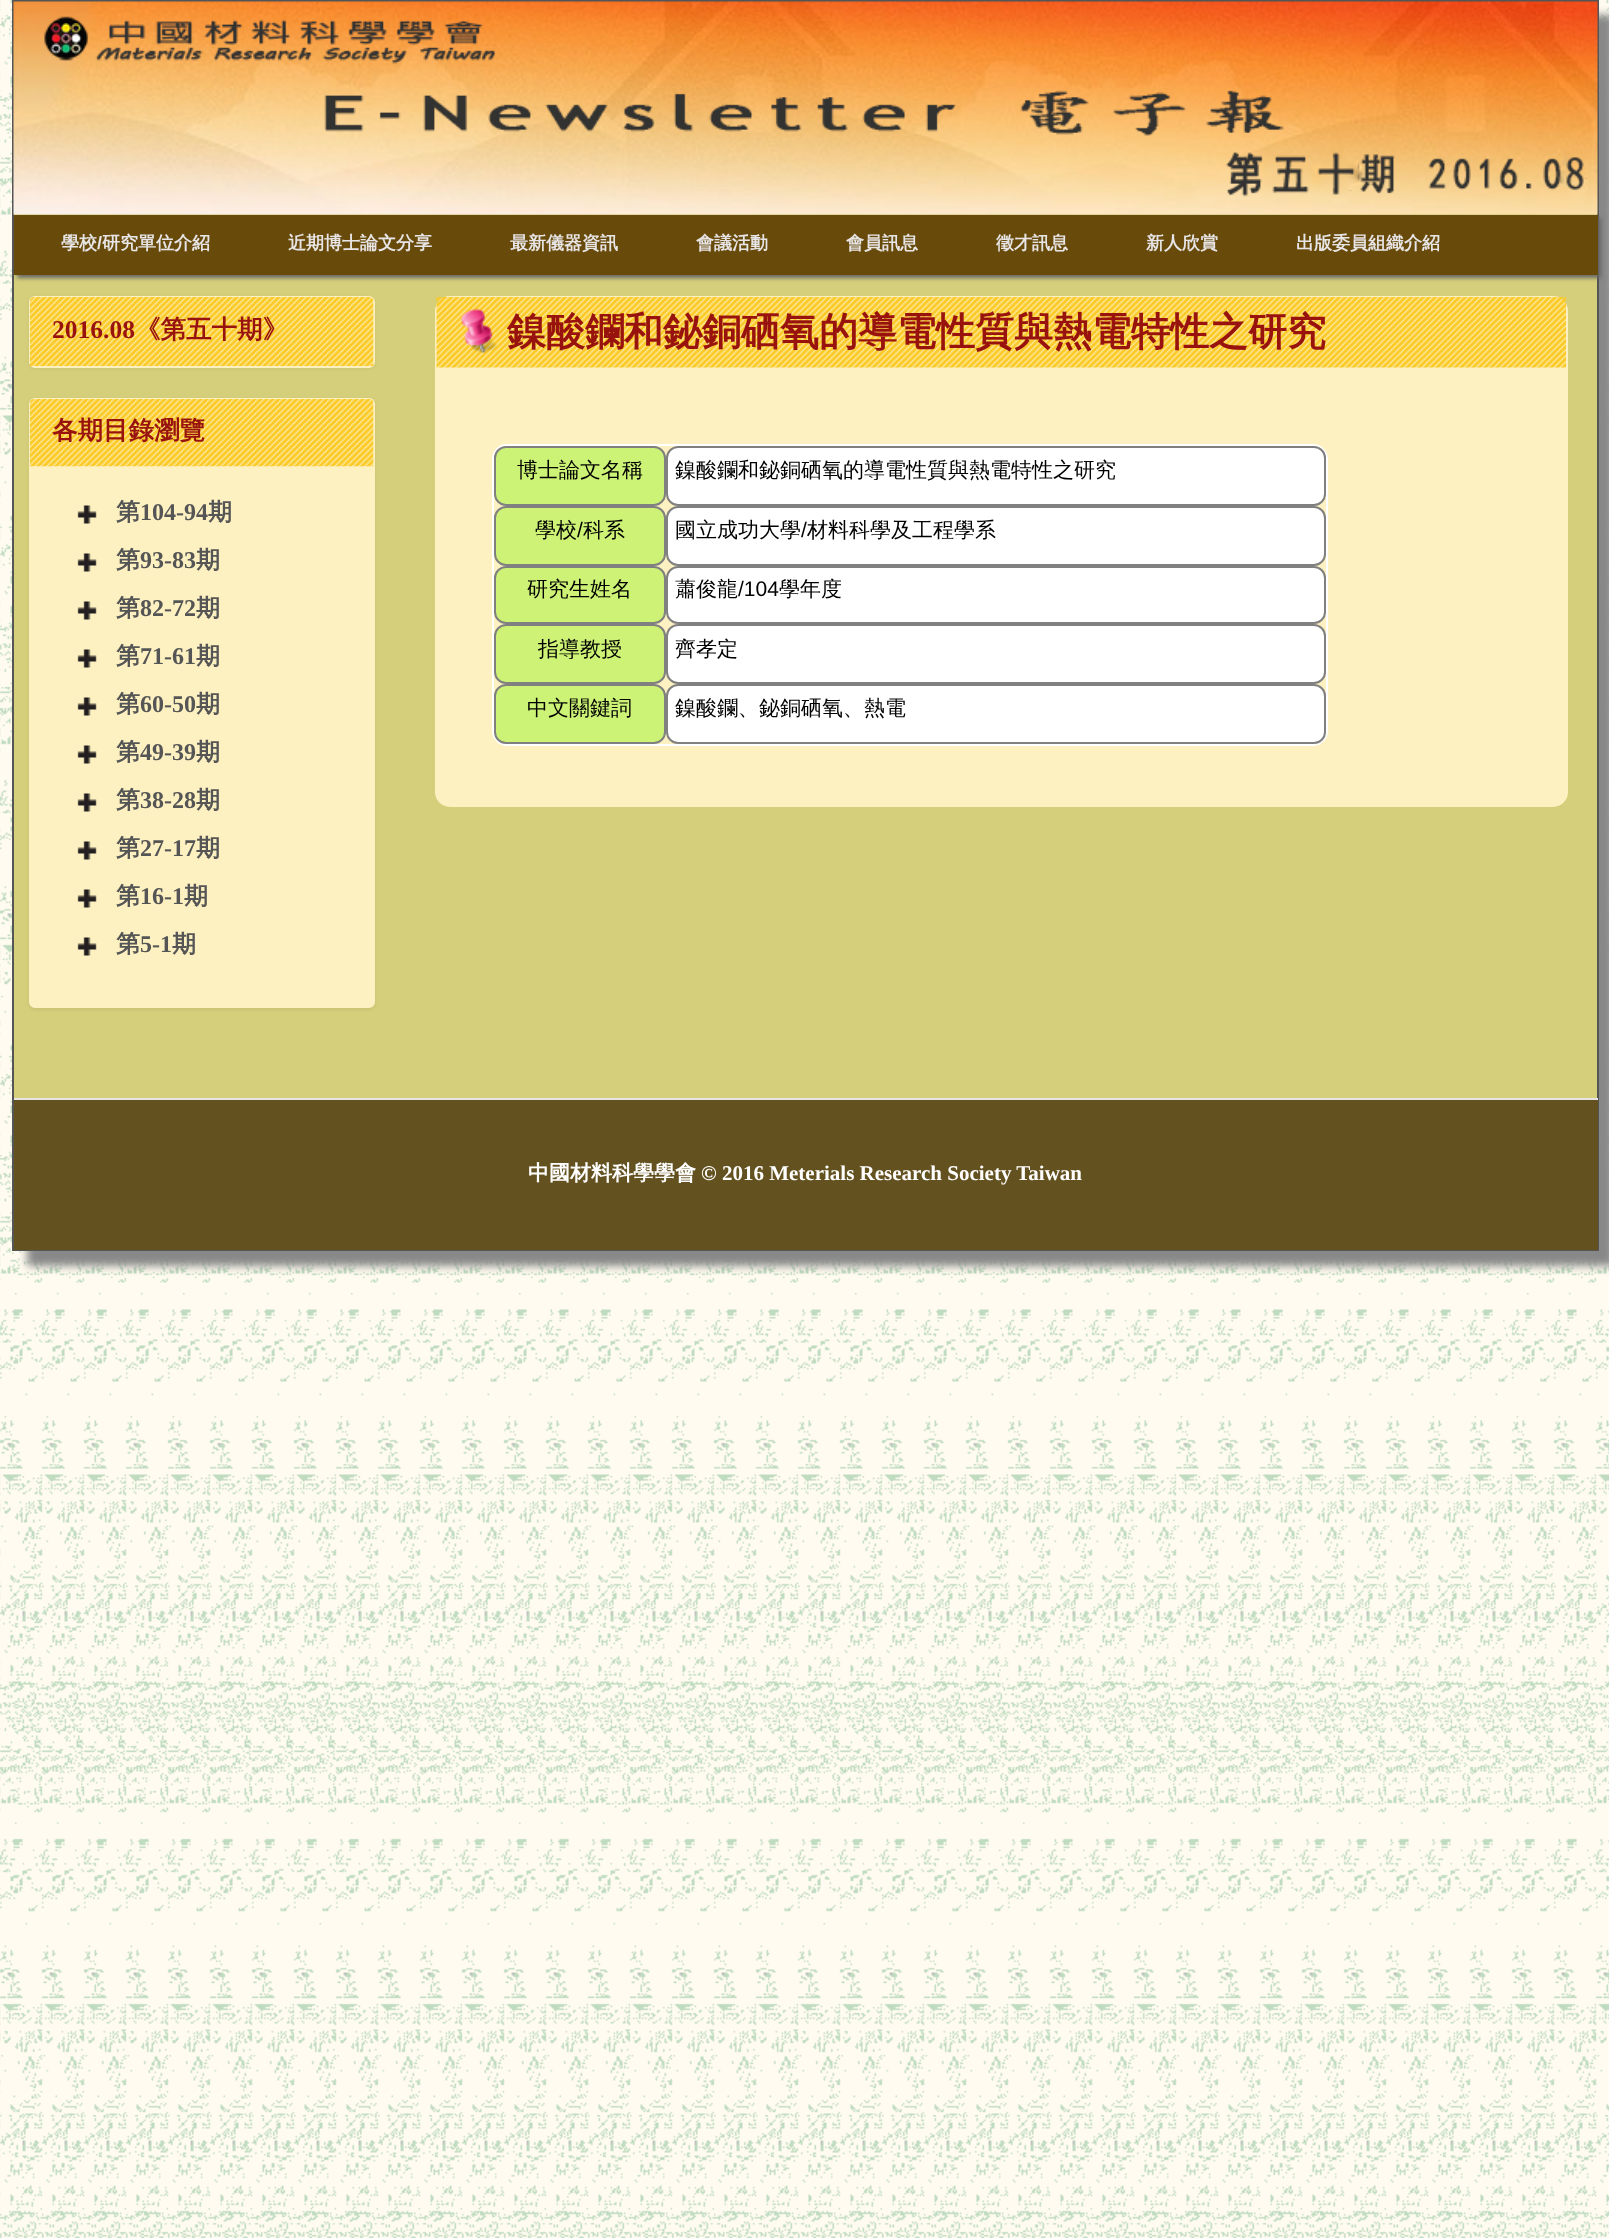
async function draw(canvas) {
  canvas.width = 1609
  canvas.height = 2238
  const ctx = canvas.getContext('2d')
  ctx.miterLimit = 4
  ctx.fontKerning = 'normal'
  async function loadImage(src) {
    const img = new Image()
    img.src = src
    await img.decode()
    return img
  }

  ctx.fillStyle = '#fff'
  ctx.fillRect(0, 0, 1609, 2238)
  ctx.drawImage(await loadImage('image0.png'), 0, 0, 1609, 2238)
  ctx.fillStyle = '#888'
  ctx.filter = 'blur(4px)'
  ctx.beginPath()
  ctx.rect(27, 15, 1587, 1251)
  ctx.fill()
  ctx.filter = 'none'
  ctx.fillStyle = '#d5cf7b'
  ctx.fillRect(14, 214, 1583, 884)
  ctx.strokeStyle = '#555'
  ctx.lineWidth = 2
  ctx.strokeRect(13, 1, 1585, 1249)
  ctx.drawImage(await loadImage('image1.png'), 13, 1, 1585, 214)
  ctx.fillStyle = '#666'
  ctx.filter = 'blur(2px)'
  ctx.beginPath()
  ctx.rect(17, 218, 1584, 60)
  ctx.fill()
  ctx.filter = 'none'
  ctx.fillStyle = '#684a0a'
  ctx.fillRect(14, 215, 1584, 60)
  ctx.font = 'bold 18px WenQuanYi Zen Hei'
  ctx.fillStyle = '#e7e5e5'
  ctx.fillText('學校', 61, 249)
  ctx.font = 'bold 18px Liberation Sans'
  ctx.fillText('/', 97, 249)
  ctx.font = 'bold 18px WenQuanYi Zen Hei'
  ctx.fillText('研究單位介紹', 102, 249)
  ctx.fillText('近期博士論文分享', 288, 249)
  ctx.fillText('最新儀器資訊', 510, 249)
  ctx.fillText('會議活動', 696, 249)
  ctx.fillText('會員訊息', 846, 249)
  ctx.fillText('徵才訊息', 996, 249)
  ctx.fillText('新人欣賞', 1146, 249)
  ctx.fillText('出版委員組織介紹', 1296, 249)
  ctx.fillStyle = '#0000000d'
  ctx.filter = 'blur(1.5px)'
  ctx.beginPath()
  ctx.roundRect(29, 297, 346, 72, 6)
  ctx.fill()
  ctx.filter = 'none'
  ctx.fillStyle = '#fdf1c1'
  ctx.beginPath()
  ctx.roundRect(30, 297, 344, 70, 5)
  ctx.fill()
  ctx.strokeStyle = '#fdf1c1'
  ctx.stroke()
  ctx.drawImage(await loadImage('image2.png'), 30, 297, 344, 69)
  ctx.font = 'bold 25.5px Liberation Serif'
  ctx.fillStyle = '#98130e'
  ctx.fillText('2016.08', 52, 338)
  ctx.font = 'bold 25.5px WenQuanYi Zen Hei'
  ctx.fillText('《第五十期》', 135, 338)
  ctx.fillStyle = '#0000000d'
  ctx.filter = 'blur(1.5px)'
  ctx.beginPath()
  ctx.roundRect(29, 399, 346, 611, 6)
  ctx.fill()
  ctx.filter = 'none'
  ctx.fillStyle = '#fdf1c1'
  ctx.beginPath()
  ctx.roundRect(30, 399, 344, 608, 5)
  ctx.fill()
  ctx.stroke()
  ctx.drawImage(await loadImage('image3.png'), 30, 399, 344, 68)
  ctx.fillStyle = '#98130e'
  ctx.fillText('各期目錄瀏覽', 52, 439)
  ctx.drawImage(await loadImage('image4.png'), 77, 505, 20, 19)
  ctx.font = 'bold 24px WenQuanYi Zen Hei'
  ctx.fillStyle = '#555'
  ctx.fillText('第', 116, 520)
  ctx.font = 'bold 24px Liberation Serif'
  ctx.fillText('104-94', 140, 520)
  ctx.font = 'bold 24px WenQuanYi Zen Hei'
  ctx.fillText('期', 208, 520)
  ctx.drawImage(await loadImage('image4.png'), 77, 553, 20, 19)
  ctx.fillText('第', 116, 568)
  ctx.font = 'bold 24px Liberation Serif'
  ctx.fillText('93-83', 140, 568)
  ctx.font = 'bold 24px WenQuanYi Zen Hei'
  ctx.fillText('期', 196, 568)
  ctx.drawImage(await loadImage('image4.png'), 77, 601, 20, 19)
  ctx.fillText('第', 116, 616)
  ctx.font = 'bold 24px Liberation Serif'
  ctx.fillText('82-72', 140, 616)
  ctx.font = 'bold 24px WenQuanYi Zen Hei'
  ctx.fillText('期', 196, 616)
  ctx.drawImage(await loadImage('image4.png'), 77, 649, 20, 19)
  ctx.fillText('第', 116, 664)
  ctx.font = 'bold 24px Liberation Serif'
  ctx.fillText('71-61', 140, 664)
  ctx.font = 'bold 24px WenQuanYi Zen Hei'
  ctx.fillText('期', 196, 664)
  ctx.drawImage(await loadImage('image4.png'), 77, 697, 20, 19)
  ctx.fillText('第', 116, 712)
  ctx.font = 'bold 24px Liberation Serif'
  ctx.fillText('60-50', 140, 712)
  ctx.font = 'bold 24px WenQuanYi Zen Hei'
  ctx.fillText('期', 196, 712)
  ctx.drawImage(await loadImage('image4.png'), 77, 745, 20, 19)
  ctx.fillText('第', 116, 760)
  ctx.font = 'bold 24px Liberation Serif'
  ctx.fillText('49-39', 140, 760)
  ctx.font = 'bold 24px WenQuanYi Zen Hei'
  ctx.fillText('期', 196, 760)
  ctx.drawImage(await loadImage('image4.png'), 77, 793, 20, 19)
  ctx.fillText('第', 116, 808)
  ctx.font = 'bold 24px Liberation Serif'
  ctx.fillText('38-28', 140, 808)
  ctx.font = 'bold 24px WenQuanYi Zen Hei'
  ctx.fillText('期', 196, 808)
  ctx.drawImage(await loadImage('image4.png'), 77, 841, 20, 19)
  ctx.fillText('第', 116, 856)
  ctx.font = 'bold 24px Liberation Serif'
  ctx.fillText('27-17', 140, 856)
  ctx.font = 'bold 24px WenQuanYi Zen Hei'
  ctx.fillText('期', 196, 856)
  ctx.drawImage(await loadImage('image4.png'), 77, 889, 20, 19)
  ctx.fillText('第', 116, 904)
  ctx.font = 'bold 24px Liberation Serif'
  ctx.fillText('16-1', 140, 904)
  ctx.font = 'bold 24px WenQuanYi Zen Hei'
  ctx.fillText('期', 184, 904)
  ctx.drawImage(await loadImage('image4.png'), 77, 937, 20, 19)
  ctx.fillText('第', 116, 952)
  ctx.font = 'bold 24px Liberation Serif'
  ctx.fillText('5-1', 140, 952)
  ctx.font = 'bold 24px WenQuanYi Zen Hei'
  ctx.fillText('期', 172, 952)
  ctx.fillStyle = '#fdf1c1'
  ctx.beginPath()
  ctx.roundRect(436, 297, 1131, 509, 14)
  ctx.fill()
  ctx.stroke()
  ctx.drawImage(await loadImage('image5.png'), 436, 297, 1130, 71)
  ctx.drawImage(await loadImage('image6.png'), 460, 308, 37, 45)
  ctx.font = 'bold 39px WenQuanYi Zen Hei'
  ctx.fillStyle = '#98130e'
  ctx.fillText('鎳酸鑭和鉍銅硒氧的導電性質與熱電特性之研究', 507, 345)
  ctx.beginPath()
  ctx.roundRect(493, 445, 834, 300, 14)
  ctx.strokeStyle = '#fff'
  ctx.stroke()
  ctx.fillStyle = '#b8f355b3'
  ctx.beginPath()
  ctx.roundRect(495, 447, 170, 58, 11)
  ctx.fill()
  ctx.strokeStyle = '#808080'
  ctx.stroke()
  ctx.font = '500 21px WenQuanYi Zen Hei'
  ctx.fillStyle = '#000'
  ctx.fillText('博士論文名稱', 517, 477)
  ctx.fillStyle = '#fff'
  ctx.beginPath()
  ctx.roundRect(667, 447, 658, 58, 11)
  ctx.fill()
  ctx.stroke()
  ctx.fillStyle = '#000'
  ctx.fillText('鎳酸鑭和鉍銅硒氧的導電性質與熱電特性之研究', 675, 477)
  ctx.fillStyle = '#cdf275'
  ctx.beginPath()
  ctx.roundRect(495, 507, 170, 58, 11)
  ctx.fill()
  ctx.stroke()
  ctx.fillStyle = '#000'
  ctx.fillText('學校', 535, 537)
  ctx.font = '21px Liberation Sans'
  ctx.fillText('/', 577, 537)
  ctx.font = '500 21px WenQuanYi Zen Hei'
  ctx.fillText('科系', 583, 537)
  ctx.fillStyle = '#fff'
  ctx.beginPath()
  ctx.roundRect(667, 507, 658, 58, 11)
  ctx.fill()
  ctx.stroke()
  ctx.fillStyle = '#000'
  ctx.fillText('國立成功大學', 675, 537)
  ctx.font = '21px Liberation Sans'
  ctx.fillText('/', 801, 537)
  ctx.font = '500 21px WenQuanYi Zen Hei'
  ctx.fillText('材料科學及工程學系', 807, 537)
  ctx.fillStyle = '#cdf275'
  ctx.beginPath()
  ctx.roundRect(495, 567, 170, 56, 11)
  ctx.fill()
  ctx.stroke()
  ctx.fillStyle = '#000'
  ctx.fillText('研究生姓名', 527, 596)
  ctx.fillStyle = '#fff'
  ctx.beginPath()
  ctx.roundRect(667, 567, 658, 56, 11)
  ctx.fill()
  ctx.stroke()
  ctx.fillStyle = '#000'
  ctx.fillText('蕭俊龍', 675, 596)
  ctx.font = '21px Liberation Sans'
  ctx.fillText('/104', 738, 596)
  ctx.font = '500 21px WenQuanYi Zen Hei'
  ctx.fillText('學年度', 779, 596)
  ctx.fillStyle = '#cdf275'
  ctx.beginPath()
  ctx.roundRect(495, 625, 170, 58, 11)
  ctx.fill()
  ctx.stroke()
  ctx.fillStyle = '#000'
  ctx.fillText('指導教授', 538, 656)
  ctx.fillStyle = '#fff'
  ctx.beginPath()
  ctx.roundRect(667, 625, 658, 58, 11)
  ctx.fill()
  ctx.stroke()
  ctx.fillStyle = '#000'
  ctx.fillText('齊孝定', 675, 656)
  ctx.fillStyle = '#b8f355b3'
  ctx.beginPath()
  ctx.roundRect(495, 685, 170, 58, 11)
  ctx.fill()
  ctx.stroke()
  ctx.fillStyle = '#000'
  ctx.fillText('中文關鍵詞', 527, 715)
  ctx.fillStyle = '#fff'
  ctx.beginPath()
  ctx.roundRect(667, 685, 658, 58, 11)
  ctx.fill()
  ctx.stroke()
  ctx.fillStyle = '#000'
  ctx.fillText('鎳酸鑭、鉍銅硒氧、熱電', 675, 715)
  ctx.fillStyle = '#63511f'
  ctx.fillRect(14, 1100, 1584, 150)
  ctx.fillStyle = '#e5e5e5'
  ctx.fillRect(14, 1098, 1584, 2)
  ctx.font = 'bold 21px WenQuanYi Zen Hei'
  ctx.fillStyle = '#fff'
  ctx.fillText('中國材料科學學會', 528, 1180)
  ctx.font = 'bold 21px Liberation Serif'
  ctx.fillText('© 2016 Meterials Research Society Taiwan', 701, 1180)
}

draw(document.querySelector('canvas'))
